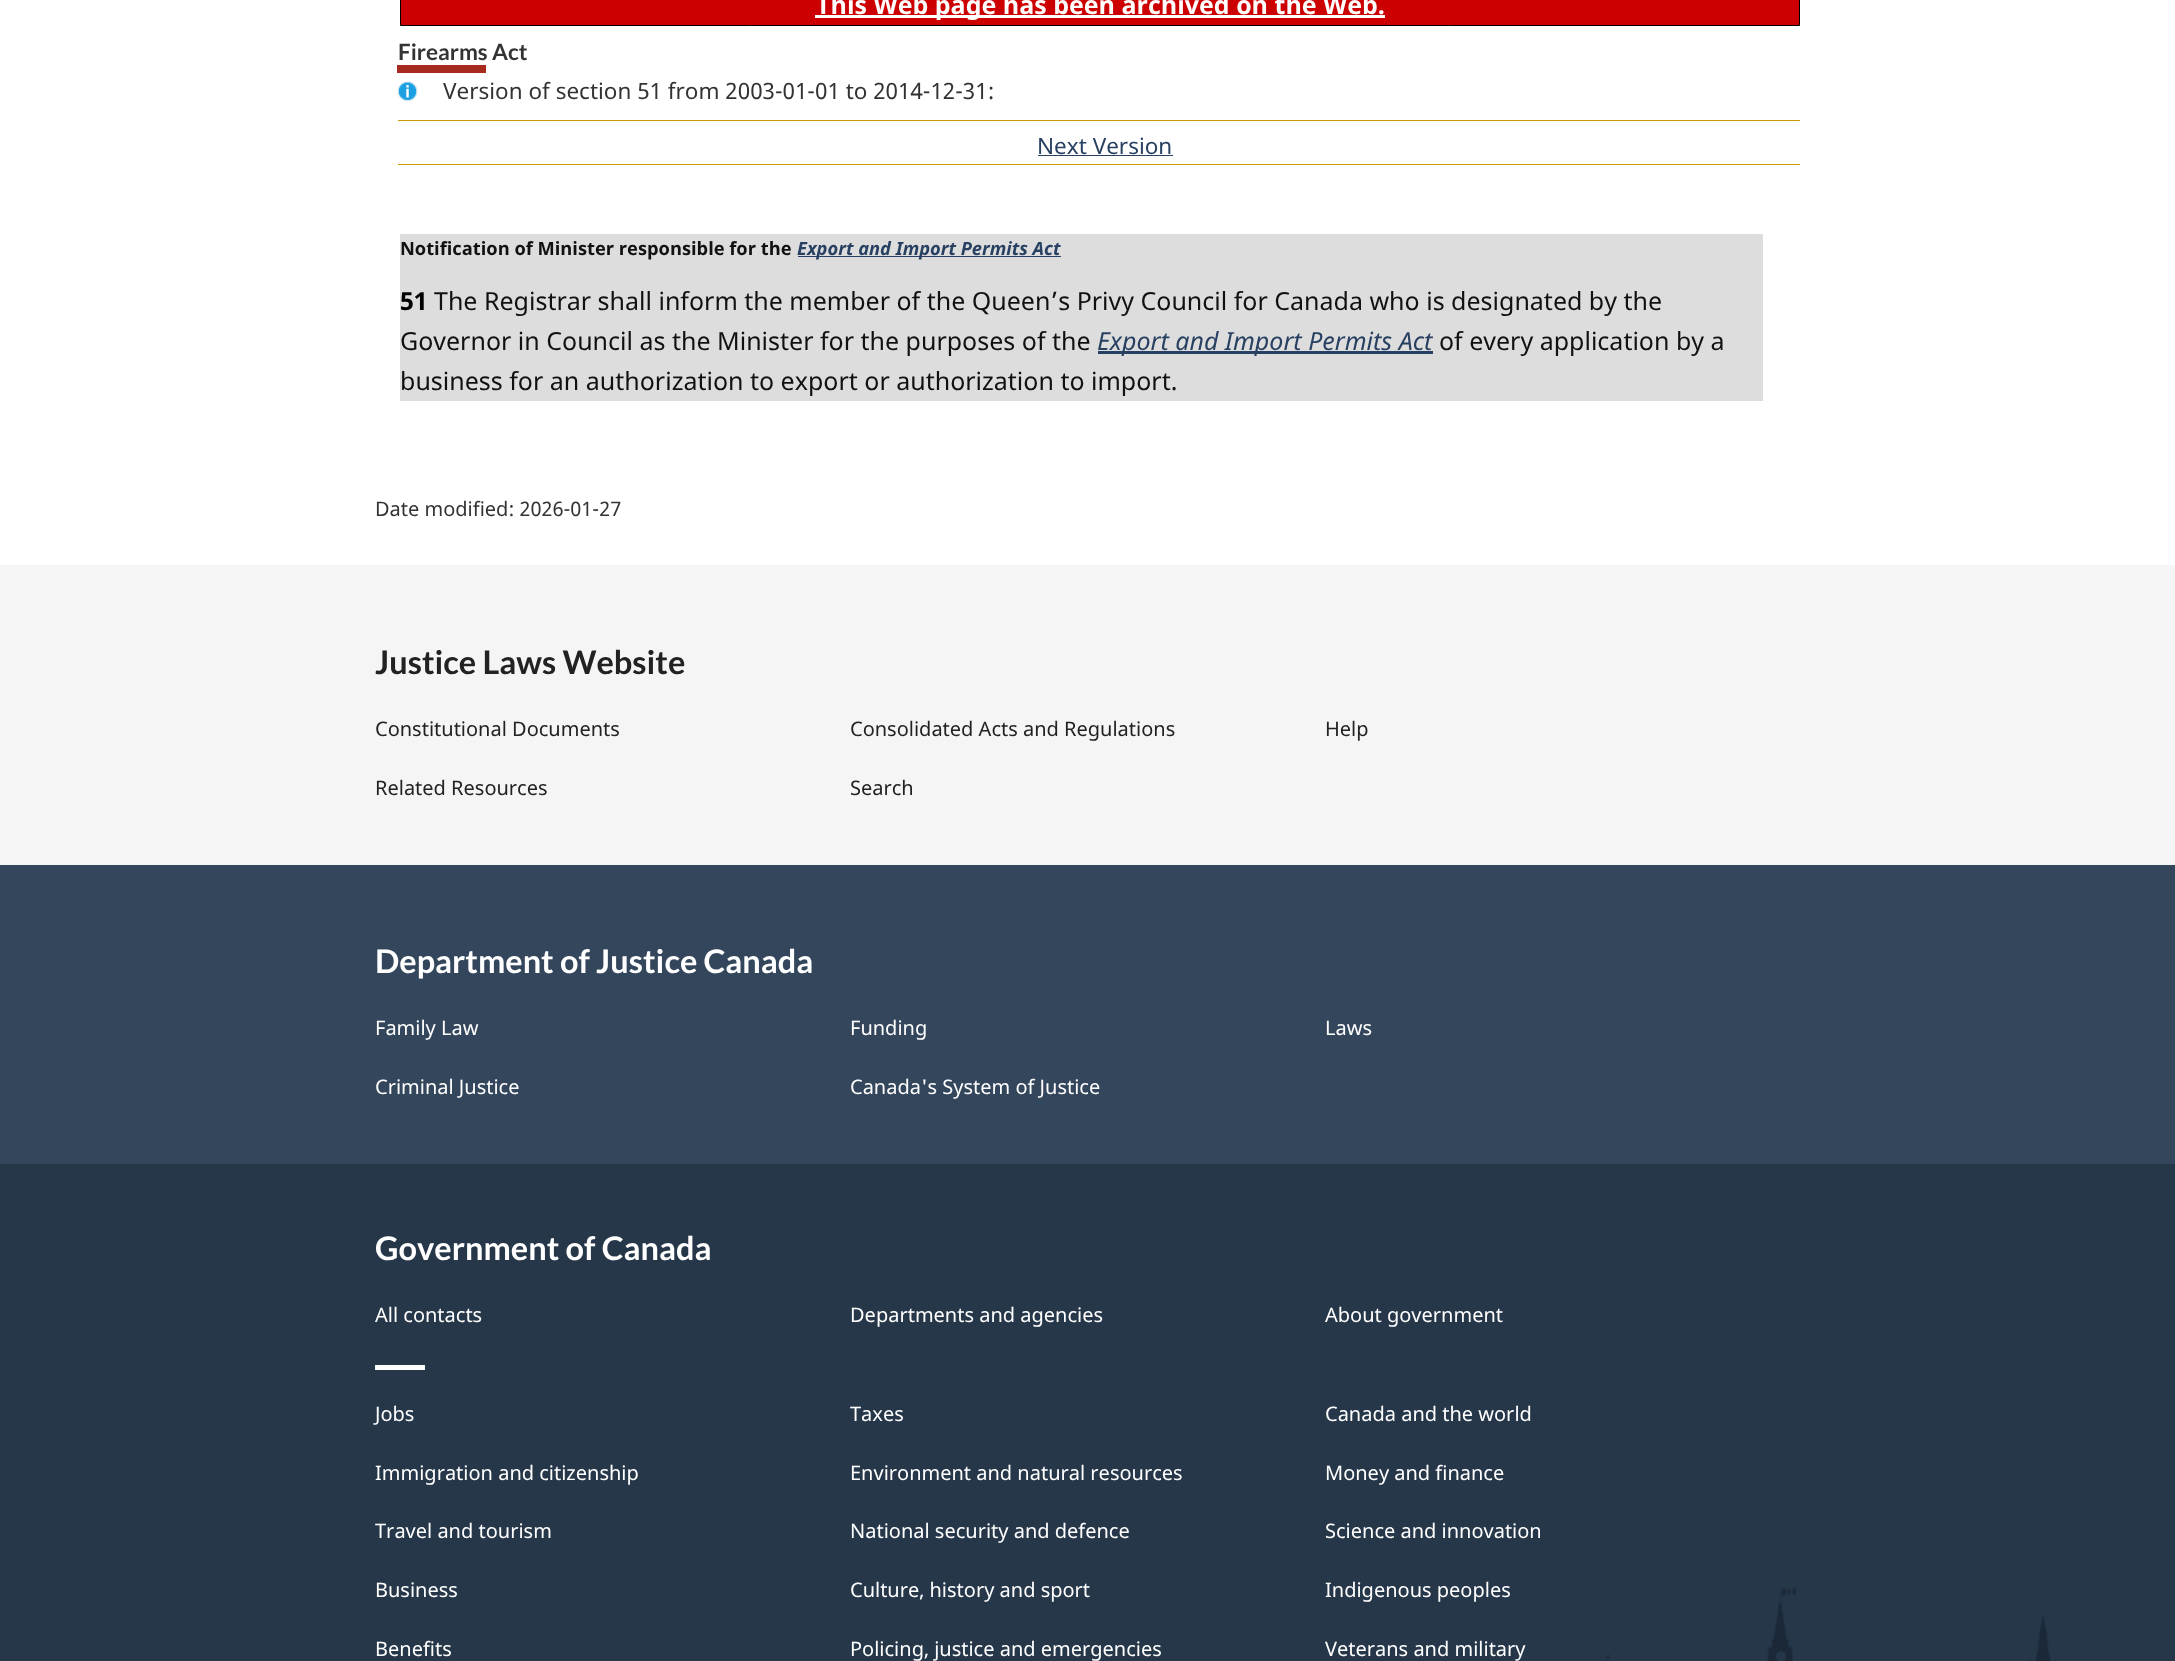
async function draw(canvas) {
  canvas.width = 2175
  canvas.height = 1661
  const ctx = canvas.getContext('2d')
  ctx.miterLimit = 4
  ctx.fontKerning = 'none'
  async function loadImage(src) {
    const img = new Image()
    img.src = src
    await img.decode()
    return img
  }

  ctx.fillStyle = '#fff'
  ctx.fillRect(0, 0, 2175, 1661)
  ctx.fillStyle = '#c00'
  ctx.beginPath()
  ctx.rect(400.5, -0.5, 1399, 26)
  ctx.fill()
  ctx.strokeStyle = '#000'
  ctx.stroke()
  ctx.fillStyle = '#fff'
  ctx.fillRect(815, 15, 570, 3)
  ctx.font = 'bold 25px Noto Sans'
  ctx.fillText('This Web page has been archived on the Web.', 816, 14)
  ctx.fillStyle = '#a62a1e'
  ctx.fillRect(397, 65, 89, 8)
  ctx.font = 'bold 22.5px Lato'
  ctx.fillStyle = '#333'
  ctx.fillText('Firearms Act', 398, 60)
  ctx.drawImage(await loadImage('image0.png'), 397, 81, 21, 20)
  ctx.font = '22.5px Noto Sans'
  ctx.fillText('Version of section 51 from 2003-01-01 to 2014-12-31:', 443, 99)
  ctx.fillStyle = '#c90'
  ctx.fillRect(398, 120, 1402, 1)
  ctx.fillRect(398, 164, 1402, 1)
  ctx.fillStyle = '#284162'
  ctx.fillText('Next Version', 1037, 154)
  ctx.fillRect(1038, 155, 135, 1)
  ctx.fillStyle = '#ddd'
  ctx.fillRect(400, 234, 1363, 167)
  ctx.font = 'bold 18.3px Noto Sans'
  ctx.fillStyle = '#111'
  ctx.fillText('Notification of Minister responsible for the', 400, 255)
  ctx.fillStyle = '#284162'
  ctx.fillRect(798, 256, 263, 1)
  ctx.font = 'italic bold 18.3px Noto Sans'
  ctx.fillText('Export and Import Permits Act', 797, 255)
  ctx.font = 'bold 25px Noto Sans'
  ctx.fillStyle = '#000'
  ctx.fillText('51', 400, 310)
  ctx.font = '25px Noto Sans'
  ctx.fillStyle = '#111'
  ctx.fillText('The Registrar shall inform the member of the Queen’s Privy Council for Canada who is designated by the', 434, 310)
  ctx.fillText('Governor in Council as the Minister for the purposes of the', 400, 350)
  ctx.fillStyle = '#284162'
  ctx.fillRect(1098, 351, 335, 3)
  ctx.font = 'italic 25px Noto Sans'
  ctx.fillText('Export and Import Permits Act', 1097, 350)
  ctx.font = '25px Noto Sans'
  ctx.fillStyle = '#111'
  ctx.fillText('of every application by a', 1439, 350)
  ctx.fillText('business for an authorization to export or authorization to import.', 400, 390)
  ctx.font = '20px Noto Sans'
  ctx.fillStyle = '#333'
  ctx.fillText('Date modified: 2026-01-27', 375, 516)
  ctx.fillStyle = '#f5f5f5'
  ctx.fillRect(0, 565, 2175, 300)
  ctx.font = 'bold 32.5px Lato'
  ctx.fillStyle = '#222'
  ctx.fillText('Justice Laws Website', 375, 674)
  ctx.font = '20px Noto Sans'
  ctx.fillText('Constitutional Documents', 375, 736)
  ctx.fillText('Consolidated Acts and Regulations', 850, 736)
  ctx.fillText('Help', 1325, 736)
  ctx.fillText('Related Resources', 375, 795)
  ctx.fillText('Search', 850, 795)
  ctx.fillStyle = '#33465c'
  ctx.fillRect(0, 865, 2175, 299)
  ctx.font = 'bold 32.5px Lato'
  ctx.fillStyle = '#fff'
  ctx.fillText('Department of Justice Canada', 375, 973)
  ctx.font = '20px Noto Sans'
  ctx.fillText('Family Law', 375, 1035)
  ctx.fillText('Funding', 850, 1035)
  ctx.fillText('Laws', 1325, 1035)
  ctx.fillText('Criminal Justice', 375, 1094)
  ctx.fillText('Canada\'s System of Justice', 850, 1094)
  ctx.fillStyle = '#26374a'
  ctx.fillRect(0, 1164, 2175, 497)
  ctx.drawImage(await loadImage('image1.png'), 1605, 1588, 451, 73)
  ctx.font = 'bold 32.5px Lato'
  ctx.fillStyle = '#fff'
  ctx.fillText('Government of Canada', 375, 1260)
  ctx.font = '20px Noto Sans'
  ctx.fillText('All contacts', 375, 1322)
  ctx.fillText('Departments and agencies', 850, 1322)
  ctx.fillText('About government', 1325, 1322)
  ctx.fillRect(375, 1365, 50, 5)
  ctx.fillText('Jobs', 375, 1421)
  ctx.fillText('Taxes', 850, 1421)
  ctx.fillText('Canada and the world', 1325, 1421)
  ctx.fillText('Immigration and citizenship', 375, 1480)
  ctx.fillText('Environment and natural resources', 850, 1480)
  ctx.fillText('Money and finance', 1325, 1480)
  ctx.fillText('Travel and tourism', 375, 1538)
  ctx.fillText('National security and defence', 850, 1538)
  ctx.fillText('Science and innovation', 1325, 1538)
  ctx.fillText('Business', 375, 1597)
  ctx.fillText('Culture, history and sport', 850, 1597)
  ctx.fillText('Indigenous peoples', 1325, 1597)
  ctx.fillText('Benefits', 375, 1656)
  ctx.fillText('Policing, justice and emergencies', 850, 1656)
  ctx.fillText('Veterans and military', 1325, 1656)
}

draw(document.querySelector('canvas'))
